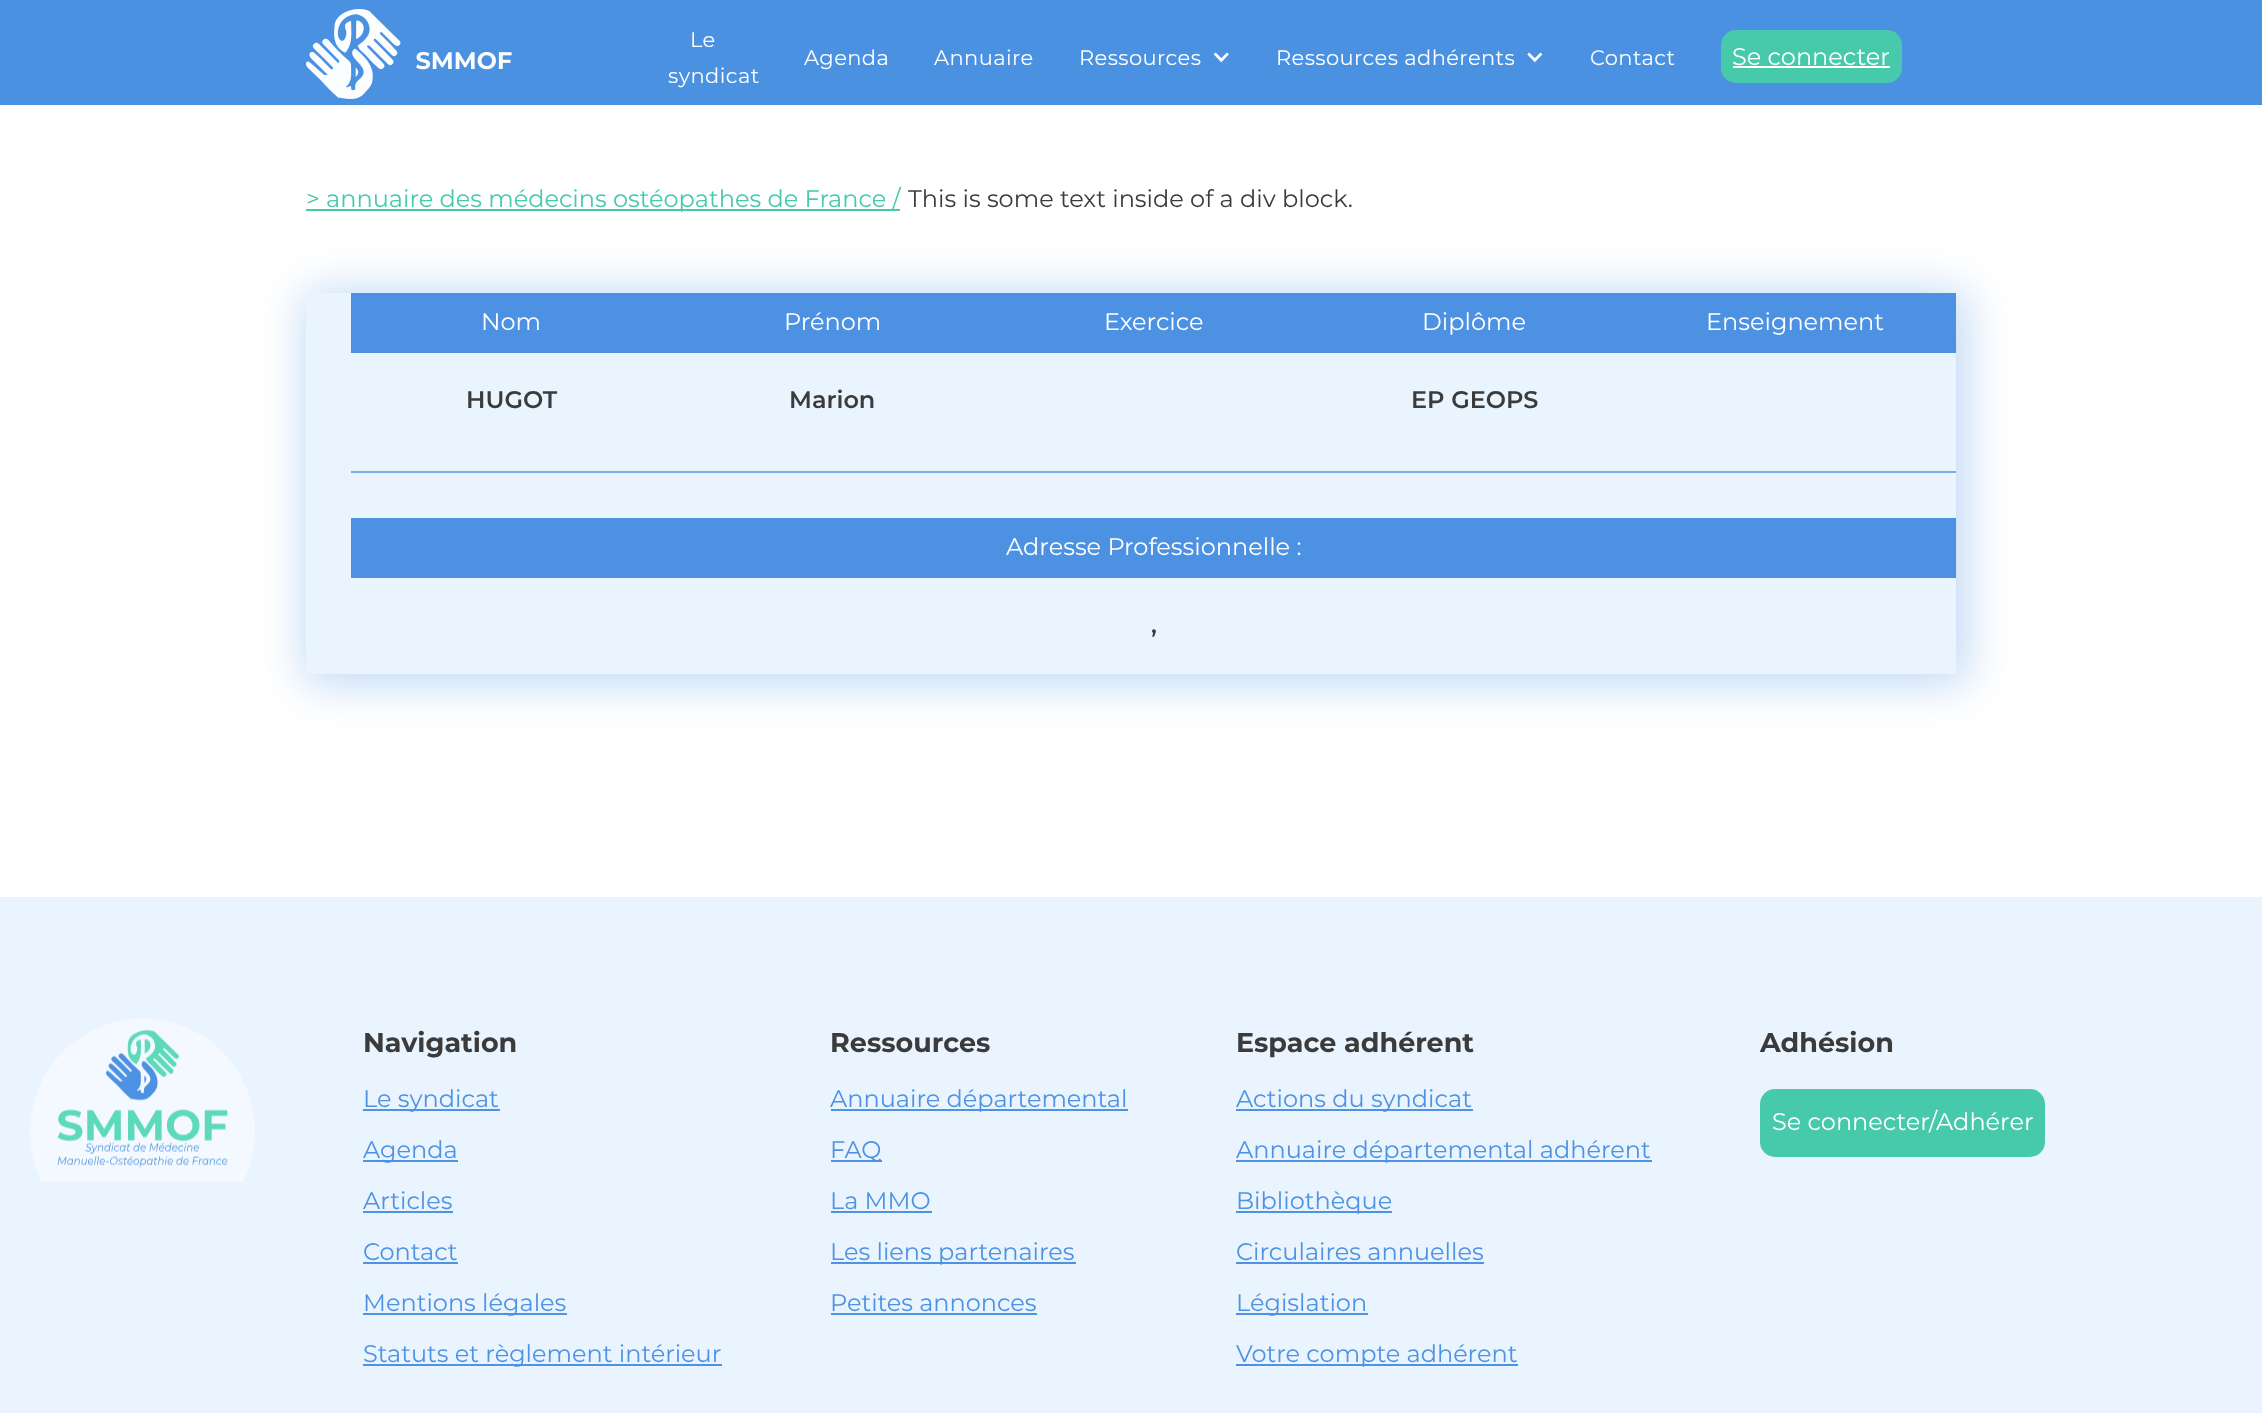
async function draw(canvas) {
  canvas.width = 2262
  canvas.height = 1413
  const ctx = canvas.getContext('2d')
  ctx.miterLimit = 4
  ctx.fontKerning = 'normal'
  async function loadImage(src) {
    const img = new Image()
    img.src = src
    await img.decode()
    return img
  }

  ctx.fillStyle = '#fff'
  ctx.fillRect(0, 0, 2262, 1413)
  ctx.fillStyle = '#4b91e2'
  ctx.fillRect(0, 0, 2262, 105)
  ctx.drawImage(await loadImage('image0.png'), 306, 9, 206, 90)
  ctx.letterSpacing = '0.4px'
  ctx.font = '21px Montserrat'
  ctx.fillStyle = '#fff'
  ctx.fillText('Le', 690, 47)
  ctx.fillText('syndicat', 668, 83)
  ctx.fillText('Agenda', 804, 65)
  ctx.fillText('Annuaire', 934, 65)
  ctx.fillText('Ressources', 1079, 65)
  ctx.drawImage(await loadImage('image1.png'), 1213, 52, 16, 11)
  ctx.fillText('Ressources adhérents', 1276, 65)
  ctx.drawImage(await loadImage('image2.png'), 1527, 52, 16, 11)
  ctx.fillText('Contact', 1590, 65)
  ctx.fillStyle = '#46caab'
  ctx.beginPath()
  ctx.roundRect(1721, 30, 181, 53, 15)
  ctx.fill()
  ctx.letterSpacing = '0px'
  ctx.font = '24px Montserrat'
  ctx.fillStyle = '#fff'
  ctx.fillText('Se connecter', 1732, 65)
  ctx.fillRect(1733, 66, 157, 2)
  ctx.fillStyle = '#45caaa'
  ctx.fillRect(306, 209, 594, 2)
  ctx.fillText('> annuaire des médecins ostéopathes de France /', 306, 207)
  ctx.fillStyle = '#3b3b3b'
  ctx.fillText('This is some text inside of a div block.', 908, 207)
  ctx.fillStyle = '#4c91e259'
  ctx.filter = 'blur(22.5px)'
  ctx.beginPath()
  ctx.rect(305, 291, 1662, 393)
  ctx.fill()
  ctx.filter = 'none'
  ctx.fillStyle = '#eaf4ff'
  ctx.fillRect(306, 293, 1650, 381)
  ctx.fillStyle = '#7bafeb'
  ctx.fillRect(351, 471, 1605, 2)
  ctx.fillStyle = '#4c91e2'
  ctx.fillRect(351, 293, 1605, 60)
  ctx.fillStyle = '#fff'
  ctx.fillText('Nom', 481, 330)
  ctx.font = '600 24px Montserrat'
  ctx.fillStyle = '#3b3b3b'
  ctx.fillText('HUGOT', 466, 408)
  ctx.font = '24px Montserrat'
  ctx.fillStyle = '#fff'
  ctx.fillText('Prénom', 784, 330)
  ctx.font = '600 24px Montserrat'
  ctx.fillStyle = '#3b3b3b'
  ctx.fillText('Marion', 789, 408)
  ctx.font = '24px Montserrat'
  ctx.fillStyle = '#fff'
  ctx.fillText('Exercice', 1104, 330)
  ctx.fillText('Diplôme', 1422, 330)
  ctx.font = '600 24px Montserrat'
  ctx.fillStyle = '#3b3b3b'
  ctx.fillText('EP GEOPS', 1411, 408)
  ctx.font = '24px Montserrat'
  ctx.fillStyle = '#fff'
  ctx.fillText('Enseignement', 1706, 330)
  ctx.fillStyle = '#4c91e2'
  ctx.fillRect(351, 518, 1605, 60)
  ctx.fillStyle = '#fff'
  ctx.fillText('Adresse Professionnelle :', 1006, 555)
  ctx.font = '600 24px Montserrat'
  ctx.fillStyle = '#3b3b3b'
  ctx.fillText(',', 1151, 633)
  ctx.fillStyle = '#eaf4ff'
  ctx.fillRect(0, 897, 2262, 516)
  ctx.drawImage(await loadImage('image3.png'), 30, 1018, 225, 164)
  ctx.font = 'bold 27px Montserrat'
  ctx.fillStyle = '#3b3b3b'
  ctx.fillText('Navigation', 363, 1052)
  ctx.fillStyle = '#4d92e3'
  ctx.fillRect(363, 1109, 137, 2)
  ctx.font = '24px Montserrat'
  ctx.fillText('Le syndicat', 363, 1107)
  ctx.fillRect(363, 1160, 95, 2)
  ctx.fillText('Agenda', 363, 1158)
  ctx.fillText('Articles', 363, 1209)
  ctx.fillRect(363, 1211, 90, 2)
  ctx.fillText('Contact', 363, 1260)
  ctx.fillRect(363, 1262, 95, 2)
  ctx.fillRect(363, 1313, 204, 2)
  ctx.fillText('Mentions légales', 363, 1311)
  ctx.fillRect(363, 1364, 359, 2)
  ctx.fillText('Statuts et règlement intérieur', 363, 1362)
  ctx.font = 'bold 27px Montserrat'
  ctx.fillStyle = '#3b3b3b'
  ctx.fillText('Ressources', 830, 1052)
  ctx.fillStyle = '#4d92e3'
  ctx.fillRect(831, 1109, 297, 2)
  ctx.font = '24px Montserrat'
  ctx.fillText('Annuaire départemental', 830, 1107)
  ctx.fillRect(831, 1160, 51, 2)
  ctx.fillText('FAQ', 830, 1158)
  ctx.fillText('La MMO', 830, 1209)
  ctx.fillRect(831, 1211, 101, 2)
  ctx.fillRect(831, 1262, 245, 2)
  ctx.fillText('Les liens partenaires', 830, 1260)
  ctx.fillText('Petites annonces', 830, 1311)
  ctx.fillRect(831, 1313, 206, 2)
  ctx.font = 'bold 27px Montserrat'
  ctx.fillStyle = '#3b3b3b'
  ctx.fillText('Espace adhérent', 1236, 1052)
  ctx.fillStyle = '#4d92e3'
  ctx.fillRect(1236, 1109, 237, 2)
  ctx.font = '24px Montserrat'
  ctx.fillText('Actions du syndicat', 1236, 1107)
  ctx.fillRect(1236, 1160, 416, 2)
  ctx.fillText('Annuaire départemental adhérent', 1236, 1158)
  ctx.fillRect(1236, 1211, 156, 2)
  ctx.fillText('Bibliothèque', 1236, 1209)
  ctx.fillText('Circulaires annuelles', 1236, 1260)
  ctx.fillRect(1236, 1262, 248, 2)
  ctx.fillRect(1236, 1313, 132, 2)
  ctx.fillText('Législation', 1236, 1311)
  ctx.fillRect(1236, 1364, 282, 2)
  ctx.fillText('Votre compte adhérent', 1236, 1362)
  ctx.font = 'bold 27px Montserrat'
  ctx.fillStyle = '#3b3b3b'
  ctx.fillText('Adhésion', 1760, 1052)
  ctx.fillStyle = '#46caab'
  ctx.beginPath()
  ctx.roundRect(1760, 1089, 285, 68, 15)
  ctx.fill()
  ctx.font = '24px Montserrat'
  ctx.fillStyle = '#fff'
  ctx.fillText('Se connecter/Adhérer', 1772, 1130)
}

draw(document.querySelector('canvas'))
